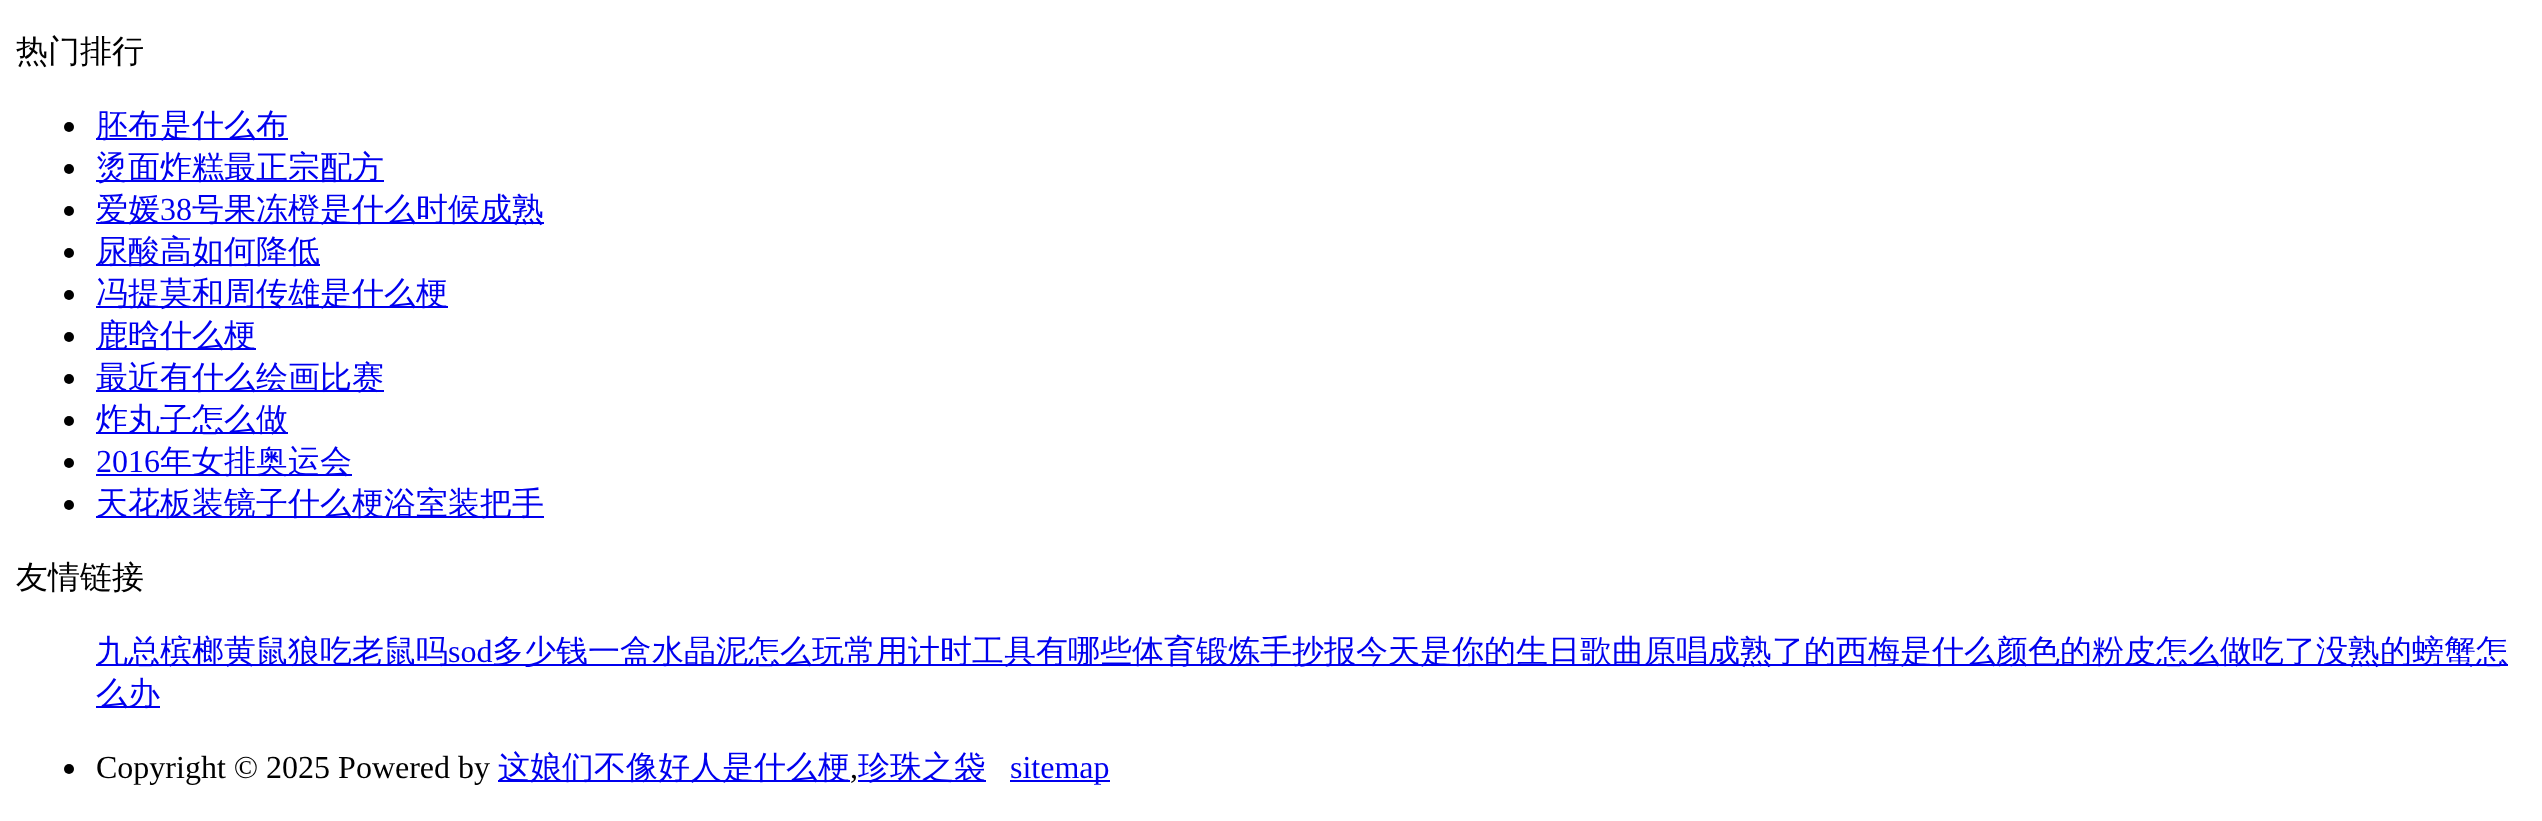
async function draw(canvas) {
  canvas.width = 2542
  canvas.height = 821
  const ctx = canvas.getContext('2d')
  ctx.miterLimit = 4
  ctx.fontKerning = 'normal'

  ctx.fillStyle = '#fff'
  ctx.fillRect(0, 0, 2542, 821)
  ctx.font = '500 32px WenQuanYi Zen Hei'
  ctx.fillStyle = '#000'
  ctx.fillText('热门排行', 16, 62)
  ctx.beginPath()
  ctx.arc(69, 127, 5, 0, 2 * Math.PI)
  ctx.fill()
  ctx.fillStyle = '#00e'
  ctx.fillRect(96, 138, 192, 2)
  ctx.fillText('胚布是什么布', 96, 136)
  ctx.fillStyle = '#000'
  ctx.beginPath()
  ctx.arc(69, 169, 5, 0, 2 * Math.PI)
  ctx.fill()
  ctx.fillStyle = '#00e'
  ctx.fillRect(96, 180, 288, 2)
  ctx.fillText('烫面炸糕最正宗配方', 96, 178)
  ctx.fillStyle = '#000'
  ctx.beginPath()
  ctx.arc(69, 211, 5, 0, 2 * Math.PI)
  ctx.fill()
  ctx.fillStyle = '#00e'
  ctx.fillRect(96, 222, 448, 2)
  ctx.fillText('爱媛', 96, 220)
  ctx.font = '32px Liberation Serif'
  ctx.fillText('38', 160, 220)
  ctx.font = '500 32px WenQuanYi Zen Hei'
  ctx.fillText('号果冻橙是什么时候成熟', 192, 220)
  ctx.fillStyle = '#000'
  ctx.beginPath()
  ctx.arc(69, 253, 5, 0, 2 * Math.PI)
  ctx.fill()
  ctx.fillStyle = '#00e'
  ctx.fillRect(96, 264, 224, 2)
  ctx.fillText('尿酸高如何降低', 96, 262)
  ctx.fillStyle = '#000'
  ctx.beginPath()
  ctx.arc(69, 295, 5, 0, 2 * Math.PI)
  ctx.fill()
  ctx.fillStyle = '#00e'
  ctx.fillRect(96, 306, 352, 2)
  ctx.fillText('冯提莫和周传雄是什么梗', 96, 304)
  ctx.fillStyle = '#000'
  ctx.beginPath()
  ctx.arc(69, 337, 5, 0, 2 * Math.PI)
  ctx.fill()
  ctx.fillStyle = '#00e'
  ctx.fillRect(96, 348, 160, 2)
  ctx.fillText('鹿晗什么梗', 96, 346)
  ctx.fillStyle = '#000'
  ctx.beginPath()
  ctx.arc(69, 379, 5, 0, 2 * Math.PI)
  ctx.fill()
  ctx.fillStyle = '#00e'
  ctx.fillRect(96, 390, 288, 2)
  ctx.fillText('最近有什么绘画比赛', 96, 388)
  ctx.fillStyle = '#000'
  ctx.beginPath()
  ctx.arc(69, 421, 5, 0, 2 * Math.PI)
  ctx.fill()
  ctx.fillStyle = '#00e'
  ctx.fillRect(96, 432, 192, 2)
  ctx.fillText('炸丸子怎么做', 96, 430)
  ctx.fillStyle = '#000'
  ctx.beginPath()
  ctx.arc(69, 463, 5, 0, 2 * Math.PI)
  ctx.fill()
  ctx.font = '32px Liberation Serif'
  ctx.fillStyle = '#00e'
  ctx.fillText('2016', 96, 472)
  ctx.fillRect(96, 474, 256, 2)
  ctx.font = '500 32px WenQuanYi Zen Hei'
  ctx.fillText('年女排奥运会', 160, 472)
  ctx.fillStyle = '#000'
  ctx.beginPath()
  ctx.arc(69, 505, 5, 0, 2 * Math.PI)
  ctx.fill()
  ctx.fillStyle = '#00e'
  ctx.fillRect(96, 516, 448, 2)
  ctx.fillText('天花板装镜子什么梗浴室装把手', 96, 514)
  ctx.fillStyle = '#000'
  ctx.fillText('友情链接', 16, 588)
  ctx.fillStyle = '#00e'
  ctx.fillRect(96, 664, 2412, 2)
  ctx.fillText('九总槟榔黄鼠狼吃老鼠吗', 96, 662)
  ctx.font = '32px Liberation Serif'
  ctx.fillText('sod', 448, 662)
  ctx.font = '500 32px WenQuanYi Zen Hei'
  ctx.fillText('多少钱一盒水晶泥怎么玩常用计时工具有哪些体育锻炼手抄报今天是你的生日歌曲原唱成熟了的西梅是什么颜色的粉皮怎么做吃了没熟的螃蟹怎', 492, 662)
  ctx.fillRect(96, 706, 64, 2)
  ctx.fillText('么办', 96, 704)
  ctx.fillStyle = '#000'
  ctx.beginPath()
  ctx.arc(69, 769, 5, 0, 2 * Math.PI)
  ctx.fill()
  ctx.font = '32px Liberation Serif'
  ctx.fillText('Copyright © 2025 Powered by', 96, 778)
  ctx.fillStyle = '#00e'
  ctx.fillRect(498, 780, 352, 2)
  ctx.font = '500 32px WenQuanYi Zen Hei'
  ctx.fillText('这娘们不像好人是什么梗', 498, 778)
  ctx.fillRect(858, 780, 128, 2)
  ctx.fillText('珍珠之袋', 858, 778)
  ctx.fillRect(1010, 780, 100, 2)
  ctx.font = '32px Liberation Serif'
  ctx.fillText('sitemap', 1010, 778)
  ctx.fillStyle = '#000'
  ctx.fillText(',', 850, 778)
}

draw(document.querySelector('canvas'))
